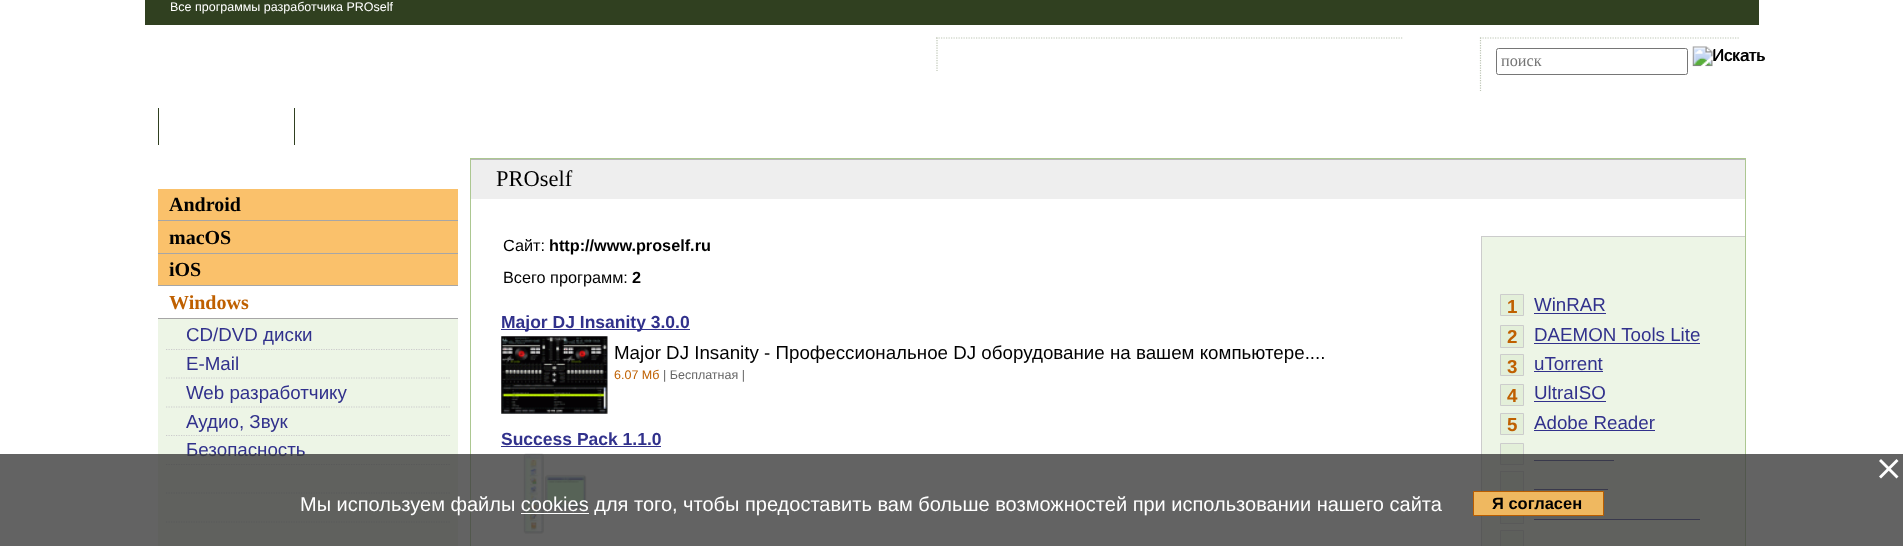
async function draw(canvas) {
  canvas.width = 1903
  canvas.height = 546
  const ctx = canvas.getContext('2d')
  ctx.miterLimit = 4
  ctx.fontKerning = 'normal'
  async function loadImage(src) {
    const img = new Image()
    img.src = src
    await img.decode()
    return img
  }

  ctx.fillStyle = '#fff'
  ctx.fillRect(0, 0, 1903, 546)
  ctx.fillStyle = '#304020'
  ctx.fillRect(145, 0, 1614, 25)
  ctx.font = '12.5px Liberation Sans'
  ctx.fillStyle = '#fff'
  ctx.fillText('Все программы разработчика PROself', 170, 11)
  ctx.beginPath()
  ctx.moveTo(936, 38)
  ctx.lineTo(1402.5, 38)
  ctx.strokeStyle = '#bec6b6'
  ctx.lineWidth = 1.2
  ctx.setLineDash([1.25, 1.25])
  ctx.stroke()
  ctx.beginPath()
  ctx.moveTo(937, 37.5)
  ctx.lineTo(937, 71)
  ctx.stroke()
  ctx.beginPath()
  ctx.moveTo(1480, 38)
  ctx.lineTo(1740, 38)
  ctx.stroke()
  ctx.beginPath()
  ctx.moveTo(1480.5, 37.5)
  ctx.lineTo(1480.5, 91)
  ctx.stroke()
  ctx.beginPath()
  ctx.roundRect(1496.5, 48.5, 191, 26, 2)
  ctx.strokeStyle = '#767676'
  ctx.lineWidth = 1
  ctx.setLineDash([])
  ctx.stroke()
  ctx.font = '16.25px Liberation Serif'
  ctx.fillStyle = '#757575'
  ctx.fillText('поиск', 1501, 66)
  ctx.drawImage(await loadImage('image0.png'), 1692, 46, 73, 21)
  ctx.font = '16.5px Liberation Sans'
  ctx.fillStyle = '#000'
  ctx.fillText('Искать', 1712, 61)
  ctx.fillStyle = '#304020'
  ctx.fillRect(294, 108, 1, 37)
  ctx.fillRect(158, 108, 1, 37)
  ctx.fillStyle = '#fac16b'
  ctx.fillRect(158, 189, 300, 31)
  ctx.fillStyle = '#a6a6a6'
  ctx.fillRect(158, 220, 300, 1)
  ctx.font = 'bold 20px Liberation Serif'
  ctx.fillStyle = '#000'
  ctx.fillText('Android', 169, 211)
  ctx.fillStyle = '#fac16b'
  ctx.fillRect(158, 221, 300, 32)
  ctx.fillStyle = '#a6a6a6'
  ctx.fillRect(158, 253, 300, 1)
  ctx.fillStyle = '#000'
  ctx.fillText('macOS', 169, 244)
  ctx.fillStyle = '#fac16b'
  ctx.fillRect(158, 254, 300, 31)
  ctx.fillStyle = '#a6a6a6'
  ctx.fillRect(158, 285, 300, 1)
  ctx.fillStyle = '#000'
  ctx.fillText('iOS', 169, 276)
  ctx.fillStyle = '#a6a6a6'
  ctx.fillRect(158, 318, 300, 1)
  ctx.fillStyle = '#bf6000'
  ctx.fillText('Windows', 169, 309)
  ctx.fillStyle = '#edf5e6'
  ctx.fillRect(158, 319, 300, 227)
  ctx.beginPath()
  ctx.moveTo(166, 349.5)
  ctx.lineTo(451, 349.5)
  ctx.strokeStyle = '#cbcbcb'
  ctx.lineWidth = 1.2
  ctx.setLineDash([1.25, 1.25])
  ctx.stroke()
  ctx.font = '18.75px Liberation Sans'
  ctx.fillStyle = '#31318c'
  ctx.fillText('CD/DVD диски', 186, 341)
  ctx.beginPath()
  ctx.moveTo(166, 378)
  ctx.lineTo(451, 378)
  ctx.stroke()
  ctx.fillText('E-Mail', 186, 370)
  ctx.beginPath()
  ctx.moveTo(166, 407)
  ctx.lineTo(451, 407)
  ctx.stroke()
  ctx.fillText('Web разработчику', 186, 399)
  ctx.beginPath()
  ctx.moveTo(166, 435.5)
  ctx.lineTo(451, 435.5)
  ctx.stroke()
  ctx.fillText('Аудио, Звук', 186, 428)
  ctx.beginPath()
  ctx.moveTo(166, 464.5)
  ctx.lineTo(451, 464.5)
  ctx.stroke()
  ctx.fillText('Безопасность', 186, 456)
  ctx.beginPath()
  ctx.moveTo(166, 493)
  ctx.lineTo(451, 493)
  ctx.stroke()
  ctx.beginPath()
  ctx.moveTo(166, 522)
  ctx.lineTo(451, 522)
  ctx.stroke()
  ctx.fillStyle = '#acc791'
  ctx.fillRect(470, 158, 1276, 1)
  ctx.fillRect(1745, 158, 1, 78)
  ctx.fillRect(470, 158, 1, 388)
  ctx.fillStyle = '#eee'
  ctx.fillRect(471, 160, 1274, 39)
  ctx.fillStyle = '#b7b7b7'
  ctx.fillRect(471, 159, 1274, 1)
  ctx.font = '22.5px Liberation Serif'
  ctx.fillStyle = '#000'
  ctx.fillText('PROself', 496, 186)
  ctx.font = '16.25px Liberation Sans'
  ctx.fillText('Сайт:', 503, 251)
  ctx.font = 'bold 16.25px Liberation Sans'
  ctx.fillText('http://www.proself.ru', 549, 251)
  ctx.font = '16.25px Liberation Sans'
  ctx.fillText('Всего программ:', 503, 283)
  ctx.font = 'bold 16.25px Liberation Sans'
  ctx.fillText('2', 632, 283)
  ctx.fillStyle = '#31318c'
  ctx.fillRect(501, 329, 189, 1)
  ctx.font = 'bold 17.5px Liberation Sans'
  ctx.fillText('Major DJ Insanity 3.0.0', 501, 328)
  ctx.drawImage(await loadImage('image1.png'), 501, 336, 107, 78)
  ctx.font = '18.75px Liberation Sans'
  ctx.fillStyle = '#000'
  ctx.fillText('Major DJ Insanity - Профессиональное DJ оборудование на вашем компьютере....', 614, 359)
  ctx.font = '12.5px Liberation Sans'
  ctx.fillStyle = '#bf6000'
  ctx.fillText('6.07 Мб', 614, 379)
  ctx.fillStyle = '#666'
  ctx.fillText('| Бесплатная |', 663, 379)
  ctx.font = 'bold 17.5px Liberation Sans'
  ctx.fillStyle = '#31318c'
  ctx.fillText('Success Pack 1.1.0', 501, 445)
  ctx.fillRect(501, 446, 160, 1)
  ctx.drawImage(await loadImage('image2.png'), 523, 453, 64, 81)
  ctx.fillStyle = '#edf5e6'
  ctx.fillRect(1482, 237, 263, 309)
  ctx.fillStyle = '#ccc'
  ctx.fillRect(1481, 236, 265, 1)
  ctx.fillStyle = '#acc791'
  ctx.fillRect(1745, 236, 1, 310)
  ctx.fillStyle = '#ccc'
  ctx.fillRect(1481, 236, 1, 310)
  ctx.fillStyle = '#e3efd9'
  ctx.beginPath()
  ctx.rect(1500.5, 294.5, 23, 21)
  ctx.fill()
  ctx.strokeStyle = '#ccc'
  ctx.lineWidth = 1
  ctx.setLineDash([])
  ctx.stroke()
  ctx.font = 'bold 18.75px Liberation Sans'
  ctx.fillStyle = '#bf6000'
  ctx.fillText('1', 1507, 313)
  ctx.font = '18.75px Liberation Sans'
  ctx.fillStyle = '#31318c'
  ctx.fillText('WinRAR', 1534, 311)
  ctx.fillRect(1534, 313, 72, 1)
  ctx.fillStyle = '#e3efd9'
  ctx.beginPath()
  ctx.rect(1500.5, 325.5, 23, 22)
  ctx.fill()
  ctx.stroke()
  ctx.font = 'bold 18.75px Liberation Sans'
  ctx.fillStyle = '#bf6000'
  ctx.fillText('2', 1507, 343)
  ctx.font = '18.75px Liberation Sans'
  ctx.fillStyle = '#31318c'
  ctx.fillText('DAEMON Tools Lite', 1534, 341)
  ctx.fillRect(1534, 343, 166, 1)
  ctx.fillStyle = '#e3efd9'
  ctx.beginPath()
  ctx.rect(1500.5, 354.5, 23, 21)
  ctx.fill()
  ctx.stroke()
  ctx.font = 'bold 18.75px Liberation Sans'
  ctx.fillStyle = '#bf6000'
  ctx.fillText('3', 1507, 373)
  ctx.font = '18.75px Liberation Sans'
  ctx.fillStyle = '#31318c'
  ctx.fillText('uTorrent', 1534, 370)
  ctx.fillRect(1534, 371, 69, 1)
  ctx.fillStyle = '#e3efd9'
  ctx.beginPath()
  ctx.rect(1500.5, 384.5, 23, 21)
  ctx.fill()
  ctx.stroke()
  ctx.font = 'bold 18.75px Liberation Sans'
  ctx.fillStyle = '#bf6000'
  ctx.fillText('4', 1507, 402)
  ctx.font = '18.75px Liberation Sans'
  ctx.fillStyle = '#31318c'
  ctx.fillText('UltraISO', 1534, 399)
  ctx.fillRect(1534, 401, 72, 1)
  ctx.fillStyle = '#e3efd9'
  ctx.beginPath()
  ctx.rect(1500.5, 413.5, 23, 21)
  ctx.fill()
  ctx.stroke()
  ctx.font = 'bold 18.75px Liberation Sans'
  ctx.fillStyle = '#bf6000'
  ctx.fillText('5', 1507, 431)
  ctx.font = '18.75px Liberation Sans'
  ctx.fillStyle = '#31318c'
  ctx.fillText('Adobe Reader', 1534, 429)
  ctx.fillRect(1534, 430, 121, 1)
  ctx.fillStyle = '#e3efd9'
  ctx.beginPath()
  ctx.rect(1500.5, 443.5, 23, 21)
  ctx.fill()
  ctx.stroke()
  ctx.fillStyle = '#31318c'
  ctx.fillRect(1534, 460, 80, 1)
  ctx.fillStyle = '#e3efd9'
  ctx.fillRect(1501, 472, 22, 19)
  ctx.strokeRect(1500.5, 471.5, 23, 22)
  ctx.fillStyle = '#31318c'
  ctx.fillRect(1534, 489, 74, 1)
  ctx.fillStyle = '#e3efd9'
  ctx.fillRect(1501, 516, 22, 7)
  ctx.strokeRect(1500.5, 501.5, 23, 22)
  ctx.fillStyle = '#31318c'
  ctx.fillRect(1534, 519, 166, 1)
  ctx.fillStyle = '#e3efd9'
  ctx.beginPath()
  ctx.rect(1500.5, 530.5, 23, 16)
  ctx.fill()
  ctx.stroke()
  ctx.fillStyle = '#3c3c3ccc'
  ctx.fillRect(0, 454, 1903, 92)
  ctx.fillStyle = '#fff'
  ctx.beginPath()
  ctx.moveTo(1896.5, 459)
  ctx.lineTo(1898.5, 461)
  ctx.lineTo(1881, 478.5)
  ctx.lineTo(1879, 476.5)
  ctx.closePath()
  ctx.fill()
  ctx.beginPath()
  ctx.moveTo(1879, 461)
  ctx.lineTo(1881, 459)
  ctx.lineTo(1898.5, 476.5)
  ctx.lineTo(1896.5, 478.5)
  ctx.closePath()
  ctx.fill()
  ctx.font = '20px Liberation Sans'
  ctx.fillText('Мы используем файлы cookies для того, чтобы предоставить вам больше возможностей при использовании нашего сайта', 300, 511)
  ctx.fillRect(521, 513, 68, 1)
  ctx.fillStyle = '#efb860'
  ctx.beginPath()
  ctx.rect(1473.5, 491.5, 130, 24)
  ctx.fill()
  ctx.strokeStyle = '#b95d00'
  ctx.stroke()
  ctx.font = 'bold 16.5px Liberation Sans'
  ctx.fillStyle = '#000'
  ctx.fillText('Я согласен', 1492, 509)
}

draw(document.querySelector('canvas'))
